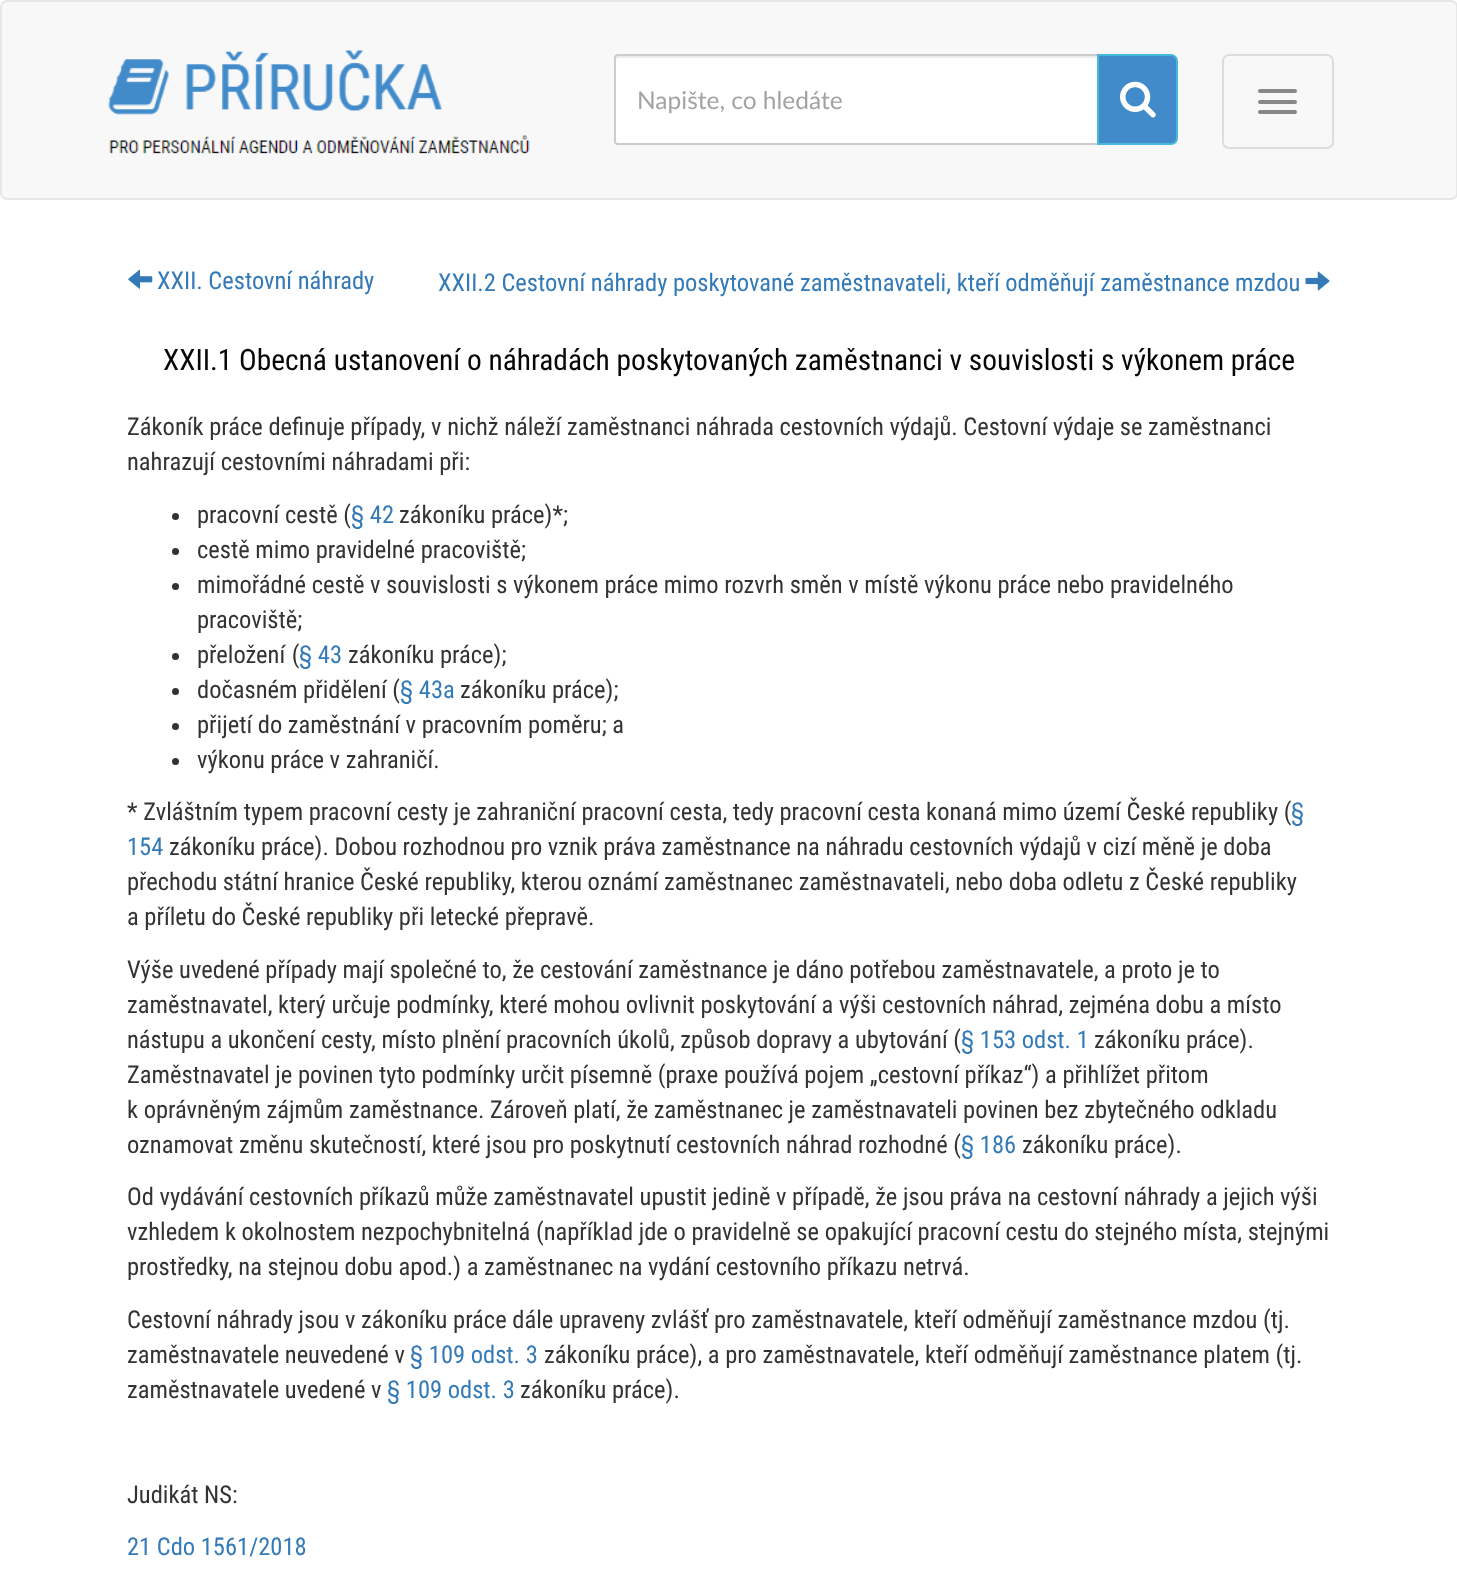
async function draw(canvas) {
  canvas.width = 1457
  canvas.height = 1596
  const ctx = canvas.getContext('2d')
  ctx.miterLimit = 4
  ctx.fontKerning = 'normal'
  async function loadImage(src) {
    const img = new Image()
    img.src = src
    await img.decode()
    return img
  }

  ctx.fillStyle = '#fff'
  ctx.fillRect(0, 0, 1457, 1596)
  ctx.fillStyle = '#f8f8f8'
  ctx.beginPath()
  ctx.roundRect(1, 1, 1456, 198, 6)
  ctx.fill()
  ctx.strokeStyle = '#e7e7e7'
  ctx.lineWidth = 2
  ctx.stroke()
  ctx.drawImage(await loadImage('image0.png'), 108, 50, 422, 104)
  ctx.fillStyle = '#fff'
  ctx.beginPath()
  ctx.roundRect(614, 54, 485, 91, [4, 0, 0, 4])
  ctx.fill()
  ctx.fillStyle = '#ececec'
  ctx.beginPath()
  ctx.moveTo(618, 58)
  ctx.lineTo(1097, 58)
  ctx.lineTo(1097, 56)
  ctx.lineTo(618, 56)
  ctx.bezierCurveTo(616, 56, 616, 58, 616, 60)
  ctx.bezierCurveTo(616, 59, 617, 58, 618, 58)
  ctx.closePath()
  ctx.fill()
  ctx.beginPath()
  ctx.roundRect(615, 55, 483, 89, [3, 0, 0, 3])
  ctx.strokeStyle = '#ccc'
  ctx.stroke()
  ctx.font = '24.5px Lato'
  ctx.fillStyle = '#a3a3a3'
  ctx.fillText('Napište, co hledáte', 637, 109)
  ctx.fillStyle = '#428bca'
  ctx.beginPath()
  ctx.roundRect(1098, 55, 79, 89, [0, 6, 6, 0])
  ctx.fill()
  ctx.strokeStyle = '#46b8da'
  ctx.stroke()
  ctx.drawImage(await loadImage('image1.png'), 1120, 81, 36, 37)
  ctx.beginPath()
  ctx.roundRect(1223, 55, 110, 93, 6)
  ctx.strokeStyle = '#ddd'
  ctx.stroke()
  ctx.fillStyle = '#888'
  ctx.beginPath()
  ctx.roundRect(1258, 89, 39, 4, 2)
  ctx.fill()
  ctx.beginPath()
  ctx.roundRect(1258, 100, 39, 4, 2)
  ctx.fill()
  ctx.beginPath()
  ctx.roundRect(1258, 110, 39, 4, 2)
  ctx.fill()
  ctx.drawImage(await loadImage('image2.png'), 128, 269, 25, 20)
  ctx.font = '24.5px Roboto Condensed'
  ctx.fillStyle = '#337ab7'
  ctx.fillText('XXII. Cestovní náhrady', 157, 289)
  ctx.fillText('XXII.2 Cestovní náhrady poskytované zaměstnavateli, kteří odměňují zaměstnance mzdou', 438, 291)
  ctx.drawImage(await loadImage('image3.png'), 1305, 271, 25, 20)
  ctx.font = '29.4px Roboto Condensed'
  ctx.fillStyle = '#070707'
  ctx.fillText('XXII.1 Obecná ustanovení o náhradách poskytovaných zaměstnanci v souvislosti s výkonem práce', 163, 370)
  ctx.font = '24.5px Roboto Condensed'
  ctx.fillStyle = '#333'
  ctx.fillText('Zákoník práce definuje případy, v nichž náleží zaměstnanci náhrada cestovních výdajů. Cestovní výdaje se zaměstnanci', 127, 435)
  ctx.fillText('nahrazují cestovními náhradami při:', 127, 470)
  ctx.beginPath()
  ctx.arc(175.5, 516.5, 3.5, 0, 2 * Math.PI)
  ctx.fill()
  ctx.fillText('pracovní cestě (', 197, 523)
  ctx.fillStyle = '#337ab7'
  ctx.fillText('§ 42', 351, 523)
  ctx.fillStyle = '#333'
  ctx.fillText('zákoníku práce)*;', 399, 523)
  ctx.beginPath()
  ctx.arc(175.5, 551.5, 3.5, 0, 2 * Math.PI)
  ctx.fill()
  ctx.fillText('cestě mimo pravidelné pracoviště;', 197, 558)
  ctx.beginPath()
  ctx.arc(175.5, 586.5, 3.5, 0, 2 * Math.PI)
  ctx.fill()
  ctx.fillText('mimořádné cestě v souvislosti s výkonem práce mimo rozvrh směn v místě výkonu práce nebo pravidelného', 197, 593)
  ctx.fillText('pracoviště;', 197, 628)
  ctx.beginPath()
  ctx.arc(175.5, 656.5, 3.5, 0, 2 * Math.PI)
  ctx.fill()
  ctx.wordSpacing = '1px'
  ctx.fillText('přeložení (', 197, 663)
  ctx.wordSpacing = '0px'
  ctx.fillStyle = '#337ab7'
  ctx.fillText('§ 43', 299, 663)
  ctx.fillStyle = '#333'
  ctx.fillText('zákoníku práce);', 348, 663)
  ctx.beginPath()
  ctx.arc(175.5, 691.5, 3.5, 0, 2 * Math.PI)
  ctx.fill()
  ctx.fillText('dočasném přidělení (', 197, 698)
  ctx.fillStyle = '#337ab7'
  ctx.fillText('§ 43a', 400, 698)
  ctx.fillStyle = '#333'
  ctx.fillText('zákoníku práce);', 460, 698)
  ctx.beginPath()
  ctx.arc(175.5, 726.5, 3.5, 0, 2 * Math.PI)
  ctx.fill()
  ctx.fillText('přijetí do zaměstnání v pracovním poměru; a', 197, 733)
  ctx.beginPath()
  ctx.arc(175.5, 761.5, 3.5, 0, 2 * Math.PI)
  ctx.fill()
  ctx.fillText('výkonu práce v zahraničí.', 197, 768)
  ctx.fillText('* Zvláštním typem pracovní cesty je zahraniční pracovní cesta, tedy pracovní cesta konaná mimo území České republiky (', 127, 820)
  ctx.fillStyle = '#337ab7'
  ctx.fillText('§', 1291, 820)
  ctx.fillText('154', 127, 855)
  ctx.fillStyle = '#333'
  ctx.fillText('zákoníku práce). Dobou rozhodnou pro vznik práva zaměstnance na náhradu cestovních výdajů v cizí měně je doba', 169, 855)
  ctx.fillText('přechodu státní hranice České republiky, kterou oznámí zaměstnanec zaměstnavateli, nebo doba odletu z České republiky', 127, 890)
  ctx.fillText('a příletu do České republiky při letecké přepravě.', 127, 925)
  ctx.fillText('Výše uvedené případy mají společné to, že cestování zaměstnance je dáno potřebou zaměstnavatele, a proto je to', 127, 978)
  ctx.fillText('zaměstnavatel, který určuje podmínky, které mohou ovlivnit poskytování a výši cestovních náhrad, zejména dobu a místo', 127, 1013)
  ctx.fillText('nástupu a ukončení cesty, místo plnění pracovních úkolů, způsob dopravy a ubytování (', 127, 1048)
  ctx.fillStyle = '#337ab7'
  ctx.fillText('§ 153 odst. 1', 961, 1048)
  ctx.fillStyle = '#333'
  ctx.fillText('zákoníku práce).', 1094, 1048)
  ctx.fillText('Zaměstnavatel je povinen tyto podmínky určit písemně (praxe používá pojem „cestovní příkaz“) a přihlížet přitom', 127, 1083)
  ctx.fillText('k oprávněným zájmům zaměstnance. Zároveň platí, že zaměstnanec je zaměstnavateli povinen bez zbytečného odkladu', 127, 1118)
  ctx.fillText('oznamovat změnu skutečností, které jsou pro poskytnutí cestovních náhrad rozhodné (', 127, 1153)
  ctx.fillStyle = '#337ab7'
  ctx.fillText('§ 186', 961, 1153)
  ctx.fillStyle = '#333'
  ctx.fillText('zákoníku práce).', 1022, 1153)
  ctx.fillText('Od vydávání cestovních příkazů může zaměstnavatel upustit jedině v případě, že jsou práva na cestovní náhrady a jejich výši', 127, 1205)
  ctx.fillText('vzhledem k okolnostem nezpochybnitelná (například jde o pravidelně se opakující pracovní cestu do stejného místa, stejnými', 127, 1240)
  ctx.fillText('prostředky, na stejnou dobu apod.) a zaměstnanec na vydání cestovního příkazu netrvá.', 127, 1275)
  ctx.fillText('Cestovní náhrady jsou v zákoníku práce dále upraveny zvlášť pro zaměstnavatele, kteří odměňují zaměstnance mzdou (tj.', 127, 1328)
  ctx.fillText('zaměstnavatele neuvedené v', 127, 1363)
  ctx.fillStyle = '#337ab7'
  ctx.fillText('§ 109 odst. 3', 410, 1363)
  ctx.fillStyle = '#333'
  ctx.fillText('zákoníku práce), a pro zaměstnavatele, kteří odměňují zaměstnance platem (tj.', 544, 1363)
  ctx.fillText('zaměstnavatele uvedené v', 127, 1398)
  ctx.fillStyle = '#337ab7'
  ctx.fillText('§ 109 odst. 3', 387, 1398)
  ctx.fillStyle = '#333'
  ctx.fillText('zákoníku práce).', 520, 1398)
  ctx.fillText('Judikát NS:', 127, 1503)
  ctx.fillStyle = '#337ab7'
  ctx.fillText('21 Cdo 1561/2018', 127, 1555)
}

draw(document.querySelector('canvas'))
